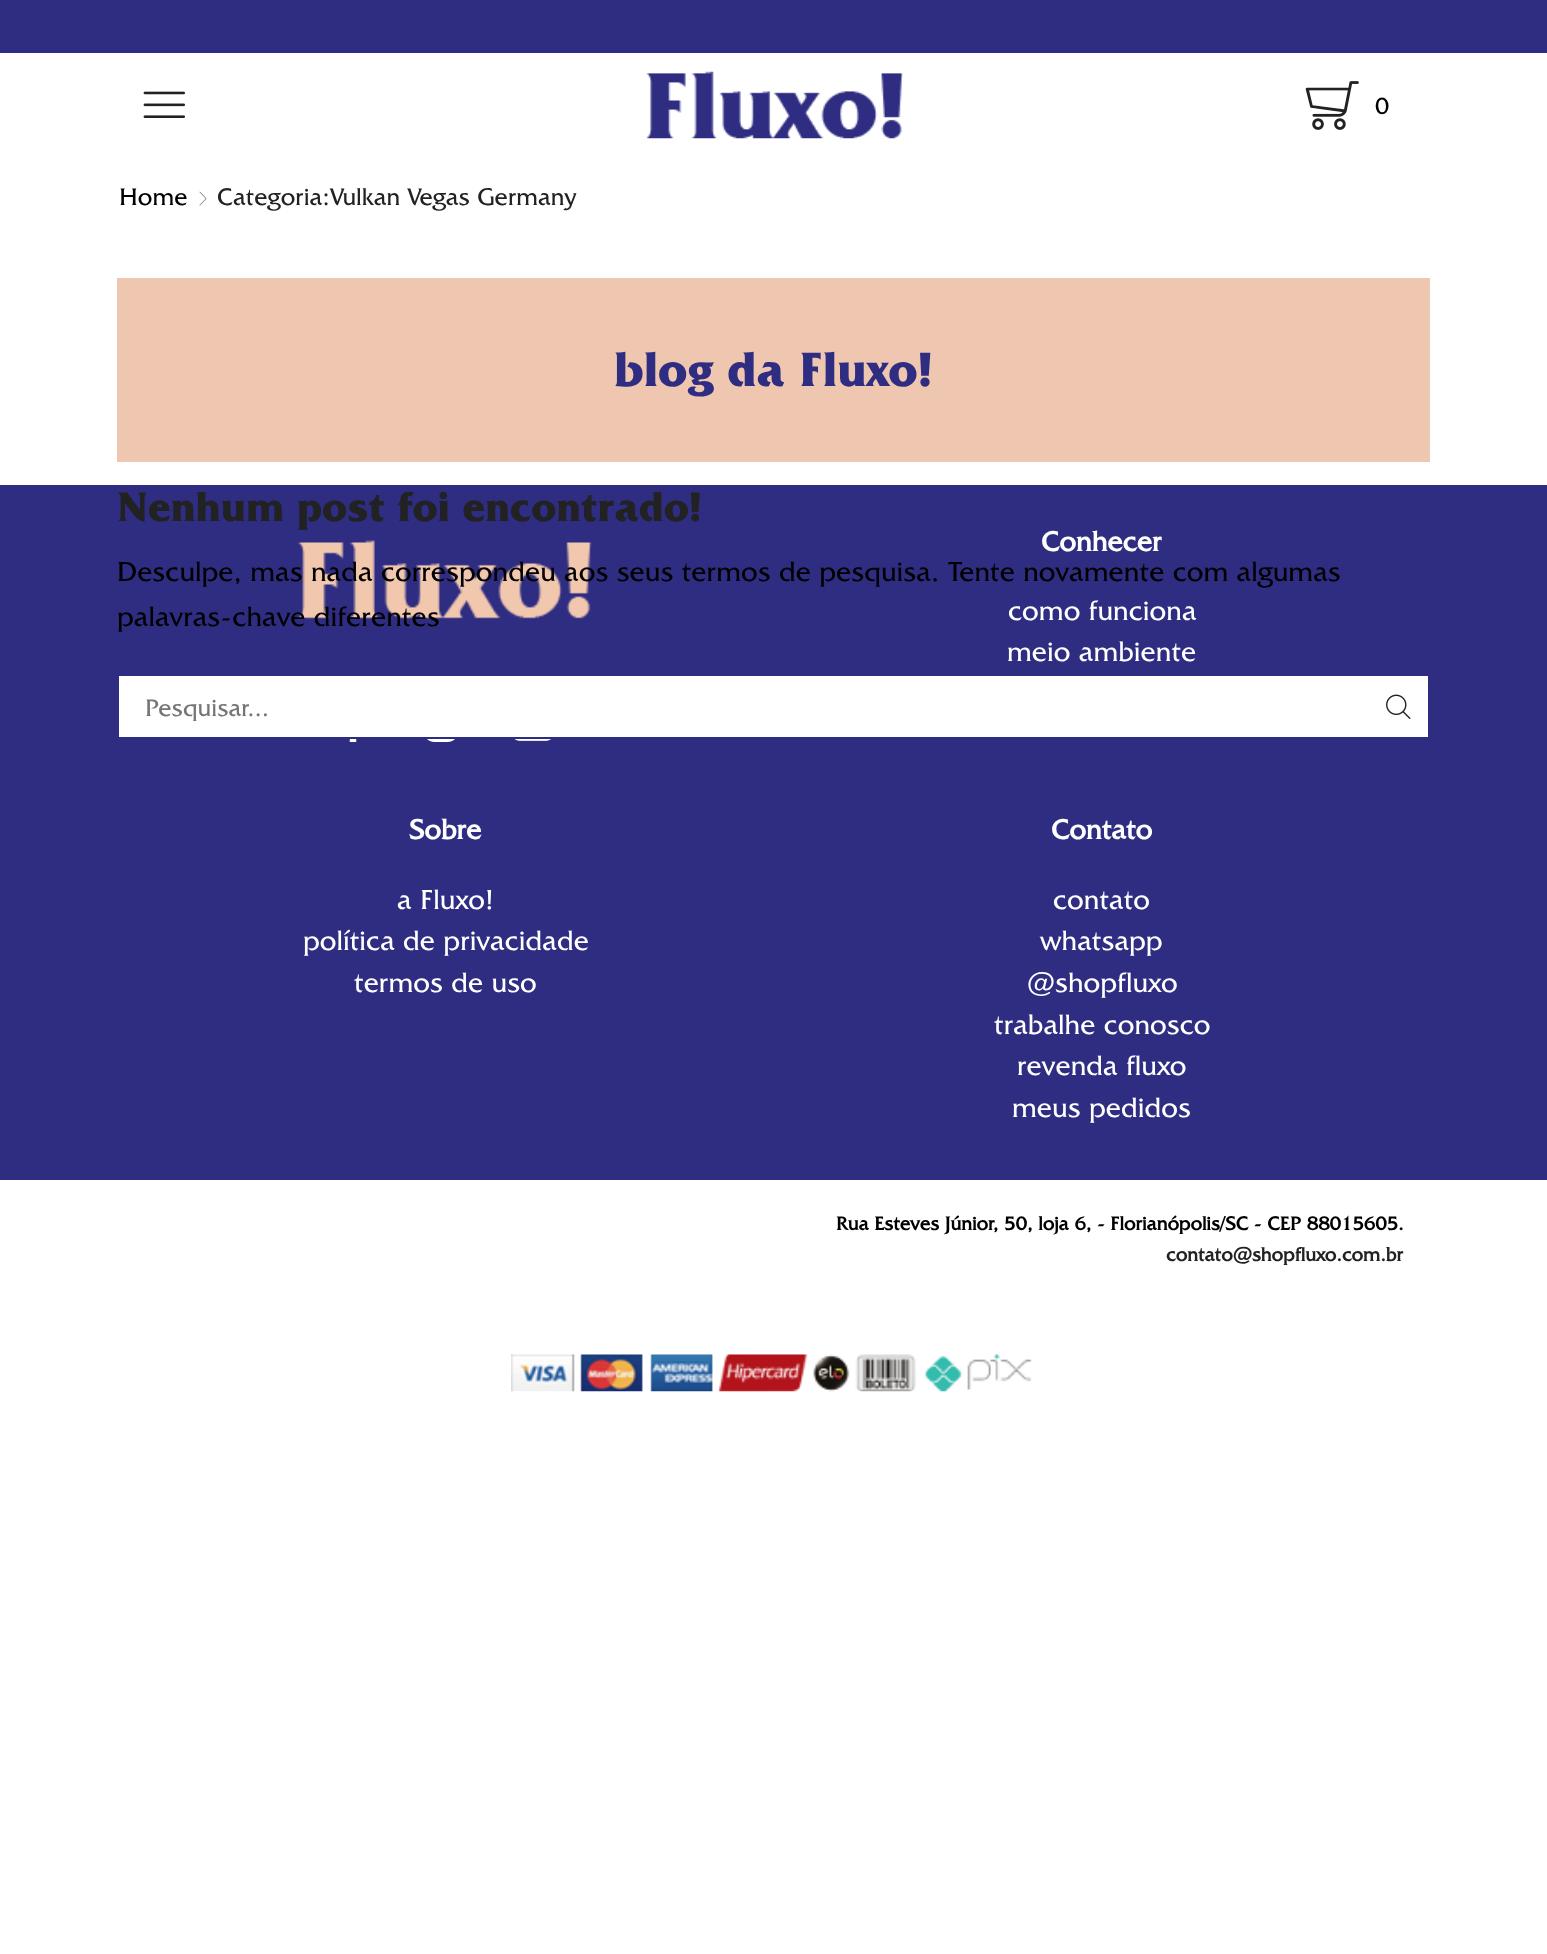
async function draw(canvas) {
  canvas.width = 1547
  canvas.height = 1954
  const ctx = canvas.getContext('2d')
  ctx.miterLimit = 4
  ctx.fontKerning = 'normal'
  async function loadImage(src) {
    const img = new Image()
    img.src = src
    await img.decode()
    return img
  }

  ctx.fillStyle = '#fff'
  ctx.fillRect(0, 0, 1547, 1954)
  ctx.fillStyle = '#2f2d82'
  ctx.fillRect(0, 0, 1547, 53)
  ctx.drawImage(await loadImage('image0.png'), 143, 91, 42, 27)
  ctx.drawImage(await loadImage('image1.png'), 646, 71, 257, 68)
  ctx.drawImage(await loadImage('image2.png'), 1305, 81, 54, 49)
  ctx.font = '24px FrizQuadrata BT'
  ctx.fillStyle = '#000'
  ctx.fillText('0', 1375, 114)
  ctx.font = '24.5px FrizQuadrata BT'
  ctx.fillText('Home', 119, 205)
  ctx.drawImage(await loadImage('image3.png'), 199, 191, 8, 15)
  ctx.fillStyle = '#222'
  ctx.fillText('Categoria:Vulkan Vegas Germany', 217, 205)
  ctx.fillStyle = '#efc6b0'
  ctx.fillRect(117, 278, 1313, 184)
  ctx.font = 'bold 49px "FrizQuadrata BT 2"'
  ctx.fillStyle = '#2f2d82'
  ctx.fillText('blog da Fluxo!', 614, 386)
  ctx.fillRect(0, 485, 1547, 695)
  ctx.font = 'bold 42px "FrizQuadrata BT 2"'
  ctx.fillStyle = '#222'
  ctx.fillText('Nenhum post foi encontrado!', 117, 521)
  ctx.drawImage(await loadImage('image5.png'), 297, 540, 295, 79)
  ctx.font = '28px FrizQuadrata BT'
  ctx.fillStyle = '#000'
  ctx.fillText('Desculpe, mas nada correspondeu aos seus termos de pesquisa. Tente novamente com algumas', 117, 581)
  ctx.fillText('palavras-chave diferentes', 117, 626)
  ctx.fillStyle = '#fff'
  ctx.fillRect(119, 676, 1309, 61)
  ctx.save()
  ctx.beginPath()
  ctx.rect(145, 693, 1192, 28)
  ctx.clip()
  ctx.font = '24.5px FrizQuadrata BT'
  ctx.fillStyle = '#757575'
  ctx.fillText('Pesquisar...', 145, 716)
  ctx.restore()
  ctx.drawImage(await loadImage('image4.png'), 1386, 694, 25, 25)
  ctx.drawImage(await loadImage('image6.png'), 349, 739, 8, 3)
  ctx.drawImage(await loadImage('image7.png'), 427, 739, 28, 3)
  ctx.drawImage(await loadImage('image8.png'), 514, 739, 37, 2)
  ctx.font = 'bold 28px FrizQuadrata BT'
  ctx.fillText('Conhecer', 1041, 551)
  ctx.font = '28px FrizQuadrata BT'
  ctx.fillText('como funciona', 1008, 620)
  ctx.fillText('meio ambiente', 1007, 661)
  ctx.font = 'bold 28px FrizQuadrata BT'
  ctx.fillText('Sobre', 409, 839)
  ctx.font = '28px FrizQuadrata BT'
  ctx.fillText('a Fluxo!', 397, 909)
  ctx.fillText('política de privacidade', 303, 950)
  ctx.fillText('termos de uso', 354, 992)
  ctx.font = 'bold 28px FrizQuadrata BT'
  ctx.fillText('Contato', 1051, 839)
  ctx.font = '28px FrizQuadrata BT'
  ctx.fillText('contato', 1053, 909)
  ctx.fillText('whatsapp', 1040, 950)
  ctx.fillText('@shopfluxo', 1027, 992)
  ctx.fillText('trabalhe conosco', 994, 1034)
  ctx.fillText('revenda fluxo', 1017, 1075)
  ctx.fillText('meus pedidos', 1012, 1117)
  ctx.font = 'bold 19.25px FrizQuadrata BT'
  ctx.fillStyle = '#000'
  ctx.fillText('Rua Esteves Júnior, 50, loja 6, - Florianópolis/SC - CEP 88015605.', 836, 1230)
  ctx.fillStyle = '#222'
  ctx.fillText('contato@shopfluxo.com.br', 1166, 1261)
  ctx.drawImage(await loadImage('image9.png'), 511, 1354, 521, 38)
}

draw(document.querySelector('canvas'))
